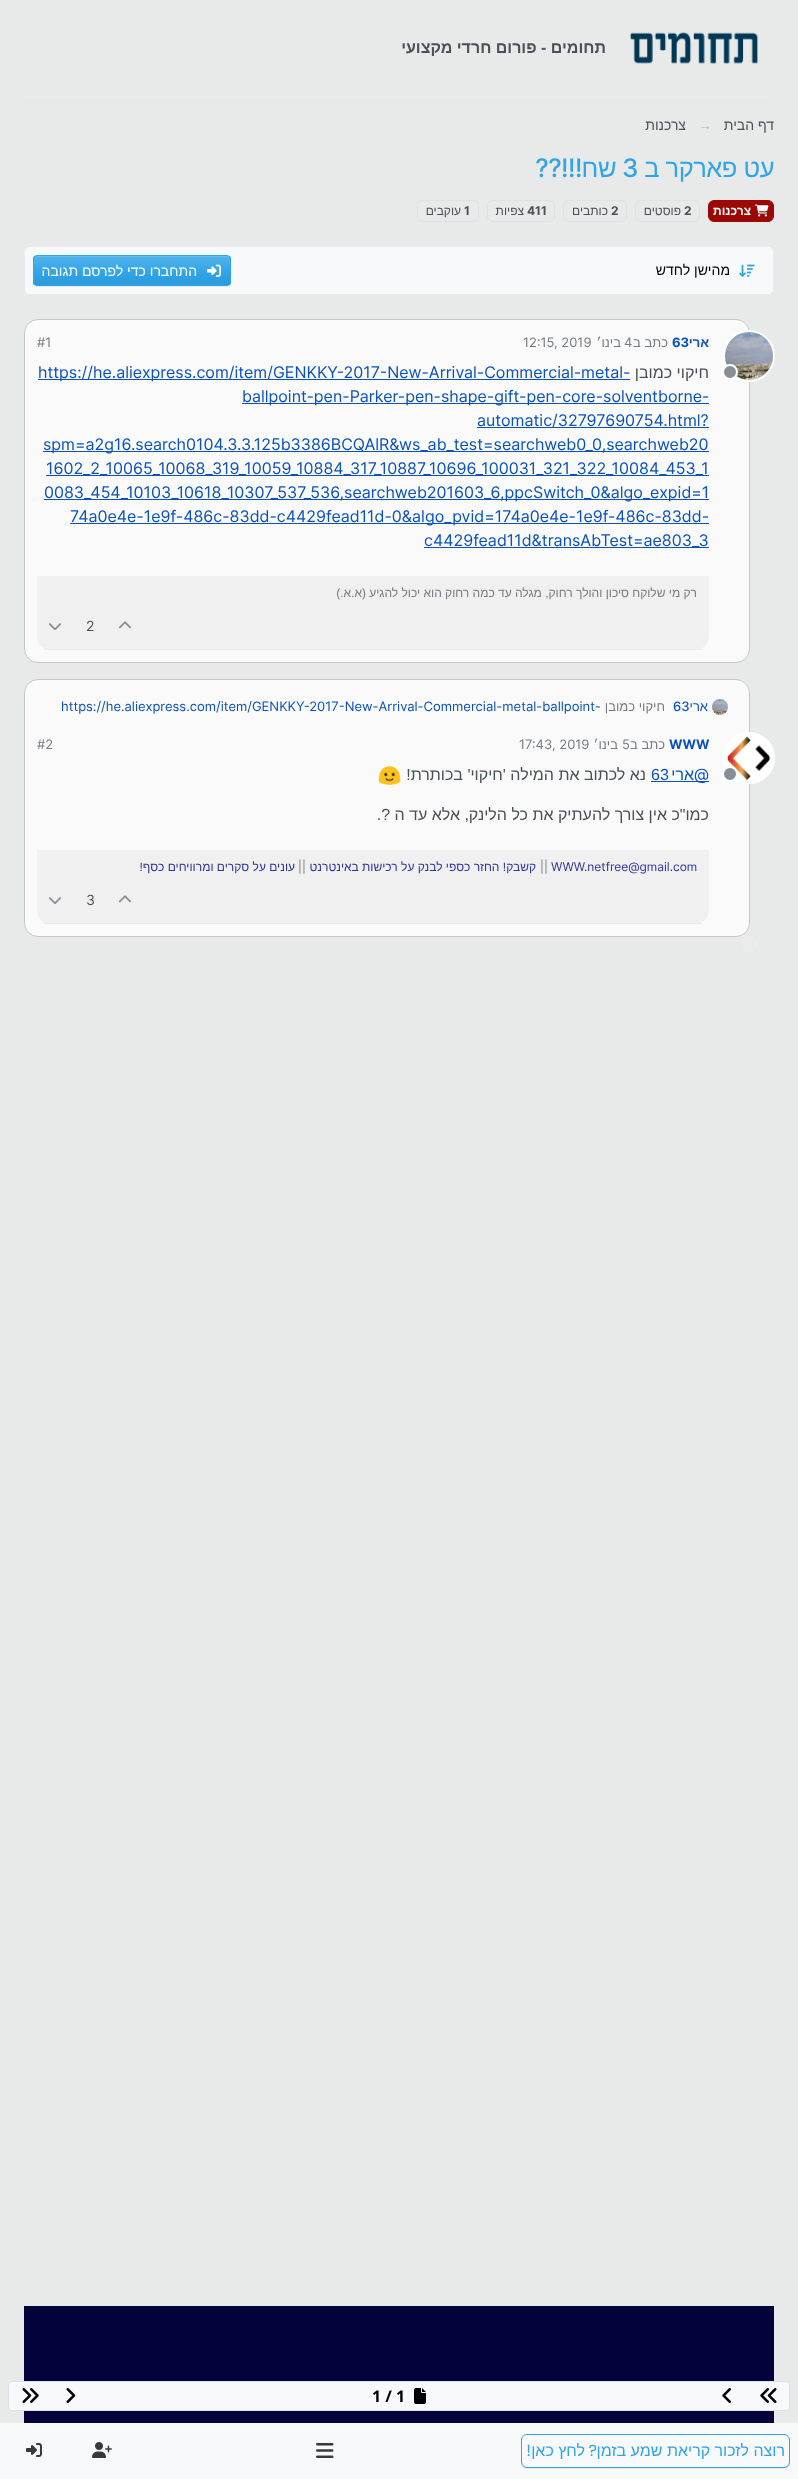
async function draw(canvas) {
  canvas.width = 798
  canvas.height = 2479
  const ctx = canvas.getContext('2d')
  ctx.miterLimit = 4
  ctx.fontKerning = 'normal'
  async function loadImage(src) {
    const img = new Image()
    img.src = src
    await img.decode()
    return img
  }
  let gradient

  ctx.fillStyle = '#e8eaea'
  ctx.fillRect(0, 0, 798, 2479)
  ctx.fillStyle = '#e9ecef'
  ctx.fillRect(24, 96, 750, 1)
  ctx.direction = 'rtl'
  ctx.font = 'bold 16px Liberation Sans'
  ctx.fillStyle = '#495057'
  ctx.fillText('תחומים - פורום חרדי מקצועי', 606, 53)
  ctx.drawImage(await loadImage('image0.png'), 630, 32, 128, 32)
  ctx.font = '14px Liberation Sans'
  ctx.fillText('צרכנות', 686, 130)
  ctx.direction = 'ltr'
  ctx.fillStyle = '#adb5bd'
  ctx.fillText('→', 698, 130)
  ctx.direction = 'rtl'
  ctx.fillStyle = '#495057'
  ctx.fillText('דף הבית', 774, 130)
  ctx.letterSpacing = '-0.5px'
  ctx.font = '500 25.5px Inter'
  ctx.fillStyle = '#2fa4e7'
  ctx.fillText('!!!??', 582, 177)
  ctx.font = '25.5px Liberation Sans'
  ctx.fillText('שח', 616, 177)
  ctx.direction = 'ltr'
  ctx.font = '500 25.5px Inter'
  ctx.fillText('3', 622, 177)
  ctx.direction = 'rtl'
  ctx.font = '25.5px Liberation Sans'
  ctx.fillText('עט פארקר ב', 774, 177)
  ctx.beginPath()
  ctx.roundRect(417.5, 200.5, 61, 21, 5.5)
  ctx.strokeStyle = '#dee2e6'
  ctx.stroke()
  ctx.letterSpacing = '0px'
  ctx.font = '12px Liberation Sans'
  ctx.fillStyle = '#495057'
  ctx.fillText('עוקבים', 461, 215)
  ctx.direction = 'ltr'
  ctx.font = 'bold 12px Inter'
  ctx.fillText('1', 464, 215)
  ctx.beginPath()
  ctx.roundRect(487.5, 200.5, 67, 21, 5.5)
  ctx.stroke()
  ctx.direction = 'rtl'
  ctx.font = '12px Liberation Sans'
  ctx.fillText('צפיות', 524, 215)
  ctx.direction = 'ltr'
  ctx.font = 'bold 12px Inter'
  ctx.fillText('411', 527, 215)
  ctx.beginPath()
  ctx.roundRect(563.5, 200.5, 63, 21, 5.5)
  ctx.stroke()
  ctx.direction = 'rtl'
  ctx.font = '12px Liberation Sans'
  ctx.fillText('כותבים', 608, 215)
  ctx.direction = 'ltr'
  ctx.font = 'bold 12px Inter'
  ctx.fillText('2', 611, 215)
  ctx.beginPath()
  ctx.roundRect(635.5, 200.5, 64, 21, 5.5)
  ctx.stroke()
  ctx.direction = 'rtl'
  ctx.font = '12px Liberation Sans'
  ctx.fillText('פוסטים', 681, 215)
  ctx.direction = 'ltr'
  ctx.font = 'bold 12px Inter'
  ctx.fillText('2', 684, 215)
  ctx.fillStyle = '#9b0906'
  ctx.beginPath()
  ctx.roundRect(708.5, 200.5, 65, 21, 5.5)
  ctx.fill()
  ctx.strokeStyle = '#9b0906'
  ctx.stroke()
  ctx.direction = 'rtl'
  ctx.font = 'bold 12px Liberation Sans'
  ctx.fillStyle = '#fff'
  ctx.fillText('צרכנות', 751, 215)
  ctx.drawImage(await loadImage('image1.png'), 755, 204, 14, 13)
  ctx.fillStyle = '#f8f9fa'
  ctx.beginPath()
  ctx.roundRect(24.5, 246.5, 749, 48, 5.5)
  ctx.fill()
  ctx.strokeStyle = '#e9ecef'
  ctx.stroke()
  ctx.fillStyle = '#00000012'
  ctx.filter = 'blur(0.5px)'
  ctx.beginPath()
  ctx.roundRect(33, 256, 198, 31, 4)
  ctx.fill()
  ctx.filter = 'none'
  ctx.save()
  ctx.beginPath()
  ctx.roundRect(33, 255, 198, 31, 4)
  ctx.clip()
  gradient = ctx.createLinearGradient(132, 256, 132, 285)
  gradient.addColorStop(0, '#50b3eb')
  gradient.addColorStop(0.6, '#2fa4e7')
  gradient.addColorStop(1, '#2c9ad9')
  ctx.fillStyle = gradient
  ctx.fillRect(33, 256, 198, 29)
  ctx.restore()
  ctx.fillStyle = '#69beee'
  ctx.beginPath()
  ctx.moveTo(37, 257)
  ctx.lineTo(227, 257)
  ctx.bezierCurveTo(229, 257, 230, 258, 230, 260)
  ctx.bezierCurveTo(230, 258, 229, 256, 227, 256)
  ctx.lineTo(37, 256)
  ctx.bezierCurveTo(35, 256, 34, 258, 34, 260)
  ctx.bezierCurveTo(34, 258, 35, 257, 37, 257)
  ctx.closePath()
  ctx.fill()
  ctx.beginPath()
  ctx.roundRect(33.5, 255.5, 197, 30, 3.5)
  ctx.strokeStyle = '#2fa4e7'
  ctx.stroke()
  ctx.font = '14px Liberation Sans'
  ctx.fillStyle = '#fff'
  ctx.fillText('התחברו כדי לפרסם תגובה', 197, 276)
  ctx.drawImage(await loadImage('image2.png'), 207, 264, 14, 13)
  ctx.fillStyle = '#000'
  ctx.fillText('מהישן לחדש', 730, 275)
  ctx.drawImage(await loadImage('image3.png'), 739, 264, 16, 13)
  ctx.fillStyle = '#fafafa'
  ctx.beginPath()
  ctx.roundRect(24.5, 319.5, 725, 343, 13.5)
  ctx.fill()
  ctx.strokeStyle = '#c8c8c8'
  ctx.stroke()
  ctx.direction = 'ltr'
  ctx.font = '13px Inter'
  ctx.fillStyle = '#757b80'
  ctx.fillText('#1', 37, 347)
  ctx.fillText('12:15, 2019', 523, 347)
  ctx.direction = 'rtl'
  ctx.font = '13px Liberation Sans'
  ctx.fillText('בינו׳', 621, 347)
  ctx.direction = 'ltr'
  ctx.font = '13px Inter'
  ctx.fillText('4', 624, 347)
  ctx.direction = 'rtl'
  ctx.font = '13px Liberation Sans'
  ctx.fillText('כתב ב', 668, 347)
  ctx.direction = 'ltr'
  ctx.font = 'bold 13px Inter'
  ctx.fillStyle = '#0951be'
  ctx.fillText('63', 672, 347)
  ctx.direction = 'rtl'
  ctx.font = 'bold 13px Liberation Sans'
  ctx.fillText('ארי', 709, 347)
  ctx.fillRect(38, 379, 592, 1)
  ctx.direction = 'ltr'
  ctx.font = '16px Inter'
  ctx.fillText('https://he.aliexpress.com/item/GENKKY-2017-New-Arrival-Commercial-metal-', 38, 378)
  ctx.direction = 'rtl'
  ctx.font = '16px Liberation Sans'
  ctx.fillStyle = '#495057'
  ctx.fillText('חיקוי כמובן', 709, 378)
  ctx.fillStyle = '#0951be'
  ctx.fillRect(242, 403, 467, 1)
  ctx.direction = 'ltr'
  ctx.font = '16px Inter'
  ctx.fillText('ballpoint-pen-Parker-pen-shape-gift-pen-core-solventborne-', 242, 402)
  ctx.fillRect(477, 427, 232, 1)
  ctx.fillText('automatic/32797690754.html?', 477, 426)
  ctx.fillRect(43, 451, 666, 1)
  ctx.fillText('spm=a2g16.search0104.3.3.125b3386BCQAlR&ws_ab_test=searchweb0_0,searchweb20', 43, 450)
  ctx.fillRect(46, 475, 663, 1)
  ctx.fillText('1602_2_10065_10068_319_10059_10884_317_10887_10696_100031_321_322_10084_453_1', 46, 474)
  ctx.fillRect(44, 499, 665, 1)
  ctx.fillText('0083_454_10103_10618_10307_537_536,searchweb201603_6,ppcSwitch_0&algo_expid=1', 44, 498)
  ctx.fillRect(70, 523, 639, 1)
  ctx.fillText('74a0e4e-1e9f-486c-83dd-c4429fead11d-0&algo_pvid=174a0e4e-1e9f-486c-83dd-', 70, 522)
  ctx.fillRect(424, 547, 285, 1)
  ctx.fillText('c4429fead11d&transAbTest=ae803_3', 424, 546)
  ctx.fillStyle = '#f0f0f1'
  ctx.beginPath()
  ctx.roundRect(37, 576, 672, 74, [0, 0, 14, 14])
  ctx.fill()
  ctx.fillStyle = '#e9ecef'
  ctx.fillRect(44, 649, 658, 1)
  ctx.direction = 'rtl'
  ctx.font = '12px Liberation Sans'
  ctx.fillStyle = '#757b80'
  ctx.fillText('רק מי שלוקח סיכון והולך רחוק, מגלה עד כמה רחוק הוא יכול להגיע (א.א.)', 697, 597)
  ctx.drawImage(await loadImage('image4.png'), 49, 623, 12, 7)
  ctx.direction = 'ltr'
  ctx.font = '14px Inter'
  ctx.fillStyle = '#495057'
  ctx.fillText('2', 86, 631)
  ctx.drawImage(await loadImage('image5.png'), 118, 621, 14, 8)
  ctx.beginPath()
  ctx.arc(749, 356, 25, 0, 2 * Math.PI)
  ctx.strokeStyle = '#fff'
  ctx.lineWidth = 2
  ctx.stroke()
  ctx.drawImage(await loadImage('image6.png'), 725, 332, 48, 48)
  ctx.fillStyle = '#868e96'
  ctx.beginPath()
  ctx.arc(730, 372, 7, 0, 2 * Math.PI)
  ctx.fill()
  ctx.stroke()
  ctx.fillStyle = '#fafafa'
  ctx.beginPath()
  ctx.roundRect(24.5, 679.5, 725, 257, 13.5)
  ctx.fill()
  ctx.strokeStyle = '#c8c8c8'
  ctx.lineWidth = 1
  ctx.stroke()
  ctx.font = '13px Inter'
  ctx.fillStyle = '#0951be'
  ctx.fillText('https://he.aliexpress.com/item/GENKKY-2017-New-Arrival-Commercial-metal-ballpoint-', 61, 711)
  ctx.direction = 'rtl'
  ctx.font = '13px Liberation Sans'
  ctx.fillStyle = '#757b80'
  ctx.fillText('חיקוי כמובן', 665, 711)
  ctx.direction = 'ltr'
  ctx.font = '500 13px Inter'
  ctx.fillStyle = '#0951be'
  ctx.fillText('63', 673, 711)
  ctx.direction = 'rtl'
  ctx.font = '13px Liberation Sans'
  ctx.fillText('ארי', 708, 711)
  ctx.drawImage(await loadImage('image7.png'), 712, 699, 16, 16)
  ctx.direction = 'ltr'
  ctx.font = '13px Inter'
  ctx.fillStyle = '#757b80'
  ctx.fillText('#2', 37, 749)
  ctx.fillText('17:43', 519, 749)
  ctx.fillText(', 2019', 552, 749)
  ctx.direction = 'rtl'
  ctx.font = '13px Liberation Sans'
  ctx.fillText('בינו׳', 618, 749)
  ctx.direction = 'ltr'
  ctx.font = '13px Inter'
  ctx.fillText('5', 622, 749)
  ctx.direction = 'rtl'
  ctx.font = '13px Liberation Sans'
  ctx.fillText('כתב ב', 665, 749)
  ctx.direction = 'ltr'
  ctx.font = 'bold 13px Inter'
  ctx.fillStyle = '#0951be'
  ctx.fillText('WWW', 669, 749)
  ctx.drawImage(await loadImage('image8.png'), 378, 766, 23, 19)
  ctx.direction = 'rtl'
  ctx.font = '16px Liberation Sans'
  ctx.fillStyle = '#495057'
  ctx.fillText('נא לכתוב את המילה \'חיקוי\' בכותרת!', 646, 780)
  ctx.direction = 'ltr'
  ctx.fillStyle = '#0951be'
  ctx.fillText('63', 651, 780)
  ctx.direction = 'rtl'
  ctx.fillText('ארי', 694, 780)
  ctx.fillRect(694, 781, 15, 1)
  ctx.direction = 'ltr'
  ctx.font = '16px Inter'
  ctx.fillText('@', 694, 780)
  ctx.fillRect(651, 781, 43, 1)
  ctx.direction = 'rtl'
  ctx.font = '16px Liberation Sans'
  ctx.fillStyle = '#495057'
  ctx.fillText('כמו"כ אין צורך להעתיק את כל הלינק, אלא עד ה ?.', 709, 820)
  ctx.fillStyle = '#f0f0f1'
  ctx.beginPath()
  ctx.roundRect(37, 850, 672, 74, [0, 0, 14, 14])
  ctx.fill()
  ctx.fillStyle = '#e9ecef'
  ctx.fillRect(44, 923, 658, 1)
  ctx.font = '12px Liberation Sans'
  ctx.fillStyle = '#2b339f'
  ctx.fillText('עונים על סקרים ומרוויחים כסף!', 295, 871)
  ctx.direction = 'ltr'
  ctx.font = '12px Inter'
  ctx.fillStyle = '#757b80'
  ctx.fillText('||', 298, 871)
  ctx.direction = 'rtl'
  ctx.font = '12px Liberation Sans'
  ctx.fillStyle = '#2b339f'
  ctx.fillText('קשבק! החזר כספי לבנק על רכישות באינטרנט', 536, 871)
  ctx.direction = 'ltr'
  ctx.font = '12px Inter'
  ctx.fillStyle = '#757b80'
  ctx.fillText('||', 540, 871)
  ctx.fillStyle = '#2b339f'
  ctx.fillText('WWW.netfree@gmail.com', 551, 871)
  ctx.drawImage(await loadImage('image4.png'), 49, 897, 12, 7)
  ctx.font = '14px Inter'
  ctx.fillStyle = '#495057'
  ctx.fillText('3', 86, 905)
  ctx.drawImage(await loadImage('image5.png'), 118, 895, 14, 8)
  ctx.fillStyle = '#fff'
  ctx.beginPath()
  ctx.arc(749, 758, 25, 0, 2 * Math.PI)
  ctx.fill()
  ctx.strokeStyle = '#fff'
  ctx.lineWidth = 2
  ctx.stroke()
  ctx.drawImage(await loadImage('image9.png'), 727, 736, 44, 45)
  ctx.fillStyle = '#868e96'
  ctx.beginPath()
  ctx.arc(730, 774, 7, 0, 2 * Math.PI)
  ctx.fill()
  ctx.stroke()
  ctx.fillStyle = '#e9ecef'
  ctx.beginPath()
  ctx.arc(750, 944, 8, 0, 2 * Math.PI)
  ctx.fill()
  ctx.fillStyle = '#03023b'
  ctx.fillRect(24, 2306, 750, 117)
  ctx.fillStyle = '#f8f9fa'
  ctx.beginPath()
  ctx.roundRect(8.5, 2381.5, 781, 29, 3.5)
  ctx.fill()
  ctx.strokeStyle = '#dee2e6'
  ctx.lineWidth = 1
  ctx.stroke()
  ctx.drawImage(await loadImage('image10.png'), 22, 2388, 17, 15)
  ctx.drawImage(await loadImage('image11.png'), 66, 2388, 10, 15)
  ctx.font = 'bold 16px Noto Sans'
  ctx.fillStyle = '#000'
  ctx.fillText('1 / 1', 372, 2402)
  ctx.drawImage(await loadImage('image12.png'), 414, 2388, 12, 16)
  ctx.drawImage(await loadImage('image13.png'), 722, 2388, 9, 15)
  ctx.drawImage(await loadImage('image14.png'), 760, 2388, 17, 15)
  ctx.fillStyle = '#f8f9fa'
  ctx.fillRect(0, 2423, 798, 56)
  ctx.drawImage(await loadImage('image15.png'), 26, 2443, 16, 14)
  ctx.drawImage(await loadImage('image16.png'), 92, 2442, 20, 16)
  ctx.drawImage(await loadImage('image17.png'), 316, 2443, 18, 15)
  ctx.fillStyle = '#00000012'
  ctx.filter = 'blur(0.5px)'
  ctx.beginPath()
  ctx.roundRect(521, 2435, 269, 34, 6)
  ctx.fill()
  ctx.filter = 'none'
  ctx.fillStyle = '#f8f9fa'
  ctx.beginPath()
  ctx.roundRect(521.5, 2434.5, 268, 33, 5.5)
  ctx.fill()
  ctx.strokeStyle = '#2fa4e7'
  ctx.stroke()
  ctx.direction = 'rtl'
  ctx.font = '16px Poppins'
  ctx.fillStyle = '#2fa4e7'
  ctx.fillText('!', 531, 2456)
  ctx.font = '16px Liberation Sans'
  ctx.fillText('לחץ כאן', 585, 2456)
  ctx.font = '16px Poppins'
  ctx.fillText('?', 597, 2456)
  ctx.font = '16px Liberation Sans'
  ctx.fillText('רוצה לזכור קריאת שמע בזמן', 785, 2456)
}

draw(document.querySelector('canvas'))
